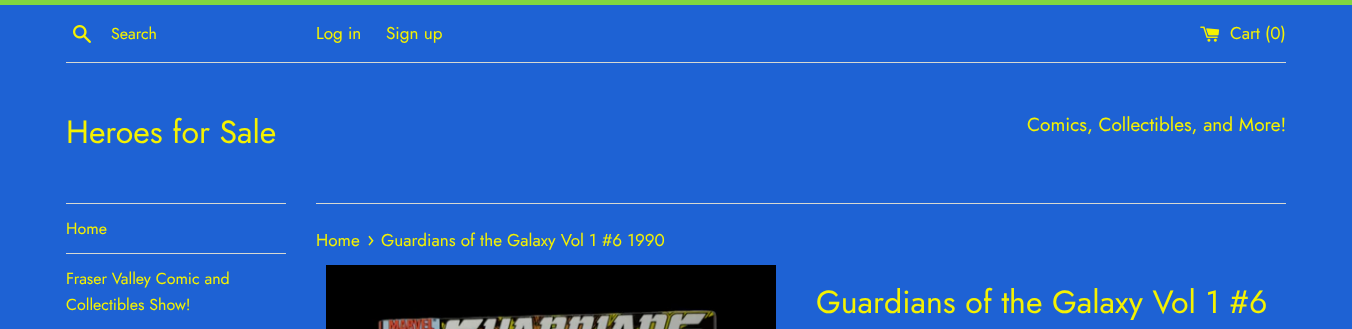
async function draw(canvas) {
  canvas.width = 1352
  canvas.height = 329
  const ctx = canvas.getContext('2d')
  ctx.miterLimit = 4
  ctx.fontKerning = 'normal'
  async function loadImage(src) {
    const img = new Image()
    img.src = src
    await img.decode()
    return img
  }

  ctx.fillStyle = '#1e62d4'
  ctx.fillRect(0, 0, 1352, 329)
  ctx.fillStyle = '#81d73f'
  ctx.fillRect(0, 0, 1352, 5)
  ctx.drawImage(await loadImage('image0.png'), 73, 25, 18, 18)
  ctx.font = '16px Jost'
  ctx.fillStyle = '#f5f200'
  ctx.fillText('Search', 111, 39)
  ctx.font = '17.1px Jost'
  ctx.fillText('Log in', 316, 39)
  ctx.fillText('Sign up', 386, 39)
  ctx.drawImage(await loadImage('image1.png'), 1200, 26, 20, 16)
  ctx.fillText('Cart (0)', 1230, 39)
  ctx.fillStyle = '#d7d8d2'
  ctx.fillRect(66, 62, 1220, 1)
  ctx.font = '32px Jost'
  ctx.fillStyle = '#f5f200'
  ctx.fillText('Heroes for Sale', 66, 143)
  ctx.font = '19px Jost'
  ctx.fillText('Comics, Collectibles, and More!', 1027, 131)
  ctx.fillStyle = '#d7d8d2'
  ctx.fillRect(66, 203, 220, 1)
  ctx.fillRect(66, 253, 220, 1)
  ctx.font = '16px Jost'
  ctx.fillStyle = '#f5f200'
  ctx.fillText('Home', 66, 234)
  ctx.fillText('Fraser Valley Comic and', 66, 284)
  ctx.fillText('Collectibles Show!', 66, 310)
  ctx.fillStyle = '#d7d8d2'
  ctx.fillRect(316, 203, 970, 1)
  ctx.font = '17.1px Jost'
  ctx.fillStyle = '#f5f200'
  ctx.fillText('Home', 316, 246)
  ctx.font = '21px Jost'
  ctx.fillText('›', 367, 246)
  ctx.font = '17.1px Jost'
  ctx.fillText('Guardians of the Galaxy Vol 1 #6 1990', 381, 246)
  ctx.drawImage(await loadImage('image2.png'), 326, 265, 450, 64)
  ctx.font = '32px Jost'
  ctx.fillText('Guardians of the Galaxy Vol 1 #6', 816, 313)
}

draw(document.querySelector('canvas'))
